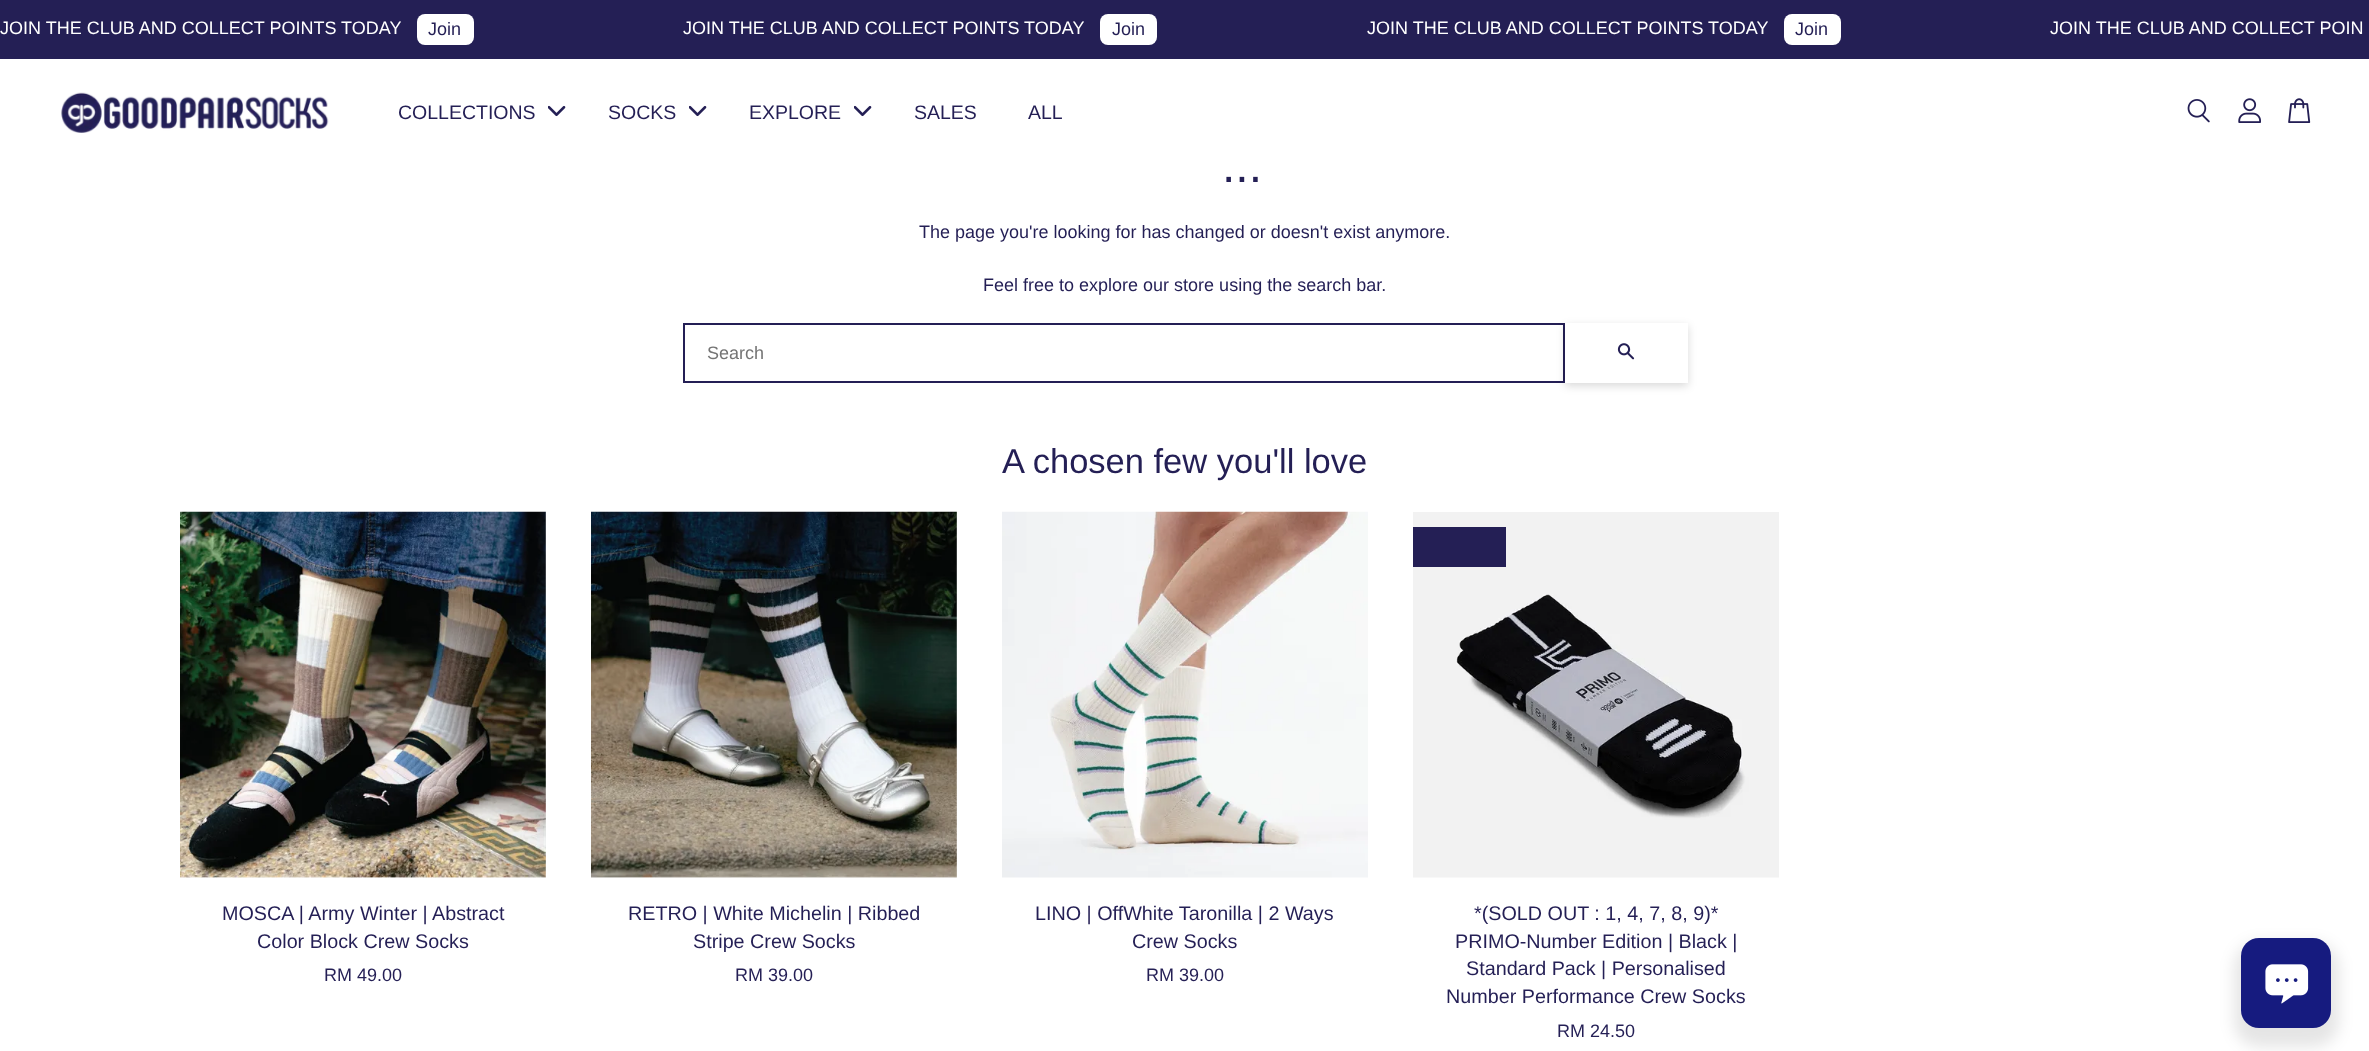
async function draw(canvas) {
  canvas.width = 2369
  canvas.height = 1051
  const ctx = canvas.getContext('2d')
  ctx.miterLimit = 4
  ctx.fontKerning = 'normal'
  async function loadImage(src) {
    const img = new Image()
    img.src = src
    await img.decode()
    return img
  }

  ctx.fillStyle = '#fff'
  ctx.fillRect(0, 0, 2369, 1051)
  ctx.fillStyle = '#241f55'
  ctx.fillRect(0, 0, 2369, 59)
  ctx.font = '18px Liberation Sans'
  ctx.fillStyle = '#fff'
  ctx.fillText('JOIN THE CLUB AND COLLECT POINTS TODAY', 0, 34)
  ctx.beginPath()
  ctx.roundRect(417, 14, 57, 31, 8)
  ctx.fill()
  ctx.fillStyle = '#241f55'
  ctx.fillText('Join', 428, 35)
  ctx.fillStyle = '#fff'
  ctx.fillText('JOIN THE CLUB AND COLLECT POINTS TODAY', 683, 34)
  ctx.beginPath()
  ctx.roundRect(1100, 14, 57, 31, 8)
  ctx.fill()
  ctx.fillStyle = '#241f55'
  ctx.fillText('Join', 1112, 35)
  ctx.fillStyle = '#fff'
  ctx.fillText('JOIN THE CLUB AND COLLECT POINTS TODAY', 1367, 34)
  ctx.beginPath()
  ctx.roundRect(1784, 14, 57, 31, 8)
  ctx.fill()
  ctx.fillStyle = '#241f55'
  ctx.fillText('Join', 1795, 35)
  ctx.fillStyle = '#fff'
  ctx.fillText('JOIN THE CLUB AND COLLECT POIN', 2050, 34)
  ctx.drawImage(await loadImage('image0.png'), 61, 92, 268, 41)
  ctx.font = '19.5px Liberation Sans'
  ctx.fillStyle = '#241f55'
  ctx.fillText('COLLECTIONS', 398, 119)
  ctx.drawImage(await loadImage('image1.png'), 548, 105, 18, 12)
  ctx.fillText('SOCKS', 608, 119)
  ctx.drawImage(await loadImage('image1.png'), 689, 105, 18, 12)
  ctx.fillText('EXPLORE', 749, 119)
  ctx.drawImage(await loadImage('image1.png'), 854, 105, 18, 12)
  ctx.fillText('SALES', 914, 119)
  ctx.fillText('ALL', 1028, 119)
  ctx.drawImage(await loadImage('image2.png'), 2187, 99, 23, 24)
  ctx.drawImage(await loadImage('image3.png'), 2238, 98, 23, 25)
  ctx.drawImage(await loadImage('image4.png'), 2288, 98, 23, 25)
  ctx.font = '48px Liberation Sans'
  ctx.fillText('...', 1222, 182)
  ctx.font = '18px Liberation Sans'
  ctx.fillText('The page you\'re looking for has changed or doesn\'t exist anymore.', 919, 238)
  ctx.fillText('Feel free to explore our store using the search bar.', 983, 291)
  ctx.strokeStyle = '#241f55'
  ctx.lineWidth = 2
  ctx.strokeRect(684, 324, 880, 58)
  ctx.fillStyle = '#757575'
  ctx.fillText('Search', 707, 359)
  ctx.fillStyle = '#00000026'
  ctx.filter = 'blur(4px)'
  ctx.beginPath()
  ctx.rect(1565, 326, 123, 60)
  ctx.fill()
  ctx.filter = 'none'
  ctx.fillStyle = '#fff'
  ctx.fillRect(1565, 323, 123, 60)
  ctx.drawImage(await loadImage('image5.png'), 1617, 343, 18, 17)
  ctx.font = '34.5px Liberation Sans'
  ctx.fillStyle = '#241f55'
  ctx.fillText('A chosen few you\'ll love', 1002, 473)
  ctx.drawImage(await loadImage('image6.png'), 180, 511, 366, 367)
  ctx.font = '19.75px Liberation Sans'
  ctx.fillText('MOSCA | Army Winter | Abstract', 222, 920)
  ctx.fillText('Color Block Crew Socks', 257, 948)
  ctx.font = '18px Liberation Sans'
  ctx.fillText('RM 49.00', 324, 981)
  ctx.drawImage(await loadImage('image7.png'), 591, 511, 366, 367)
  ctx.font = '19.75px Liberation Sans'
  ctx.fillText('RETRO | White Michelin | Ribbed', 628, 920)
  ctx.fillText('Stripe Crew Socks', 693, 948)
  ctx.font = '18px Liberation Sans'
  ctx.fillText('RM 39.00', 735, 981)
  ctx.drawImage(await loadImage('image8.png'), 1002, 511, 366, 367)
  ctx.font = '19.75px Liberation Sans'
  ctx.fillText('LINO | OffWhite Taronilla | 2 Ways', 1035, 920)
  ctx.fillText('Crew Socks', 1132, 948)
  ctx.font = '18px Liberation Sans'
  ctx.fillText('RM 39.00', 1146, 981)
  ctx.drawImage(await loadImage('image9.png'), 1413, 512, 366, 366)
  ctx.fillRect(1413, 527, 93, 40)
  ctx.font = '19.75px Liberation Sans'
  ctx.fillText('*(SOLD OUT : 1, 4, 7, 8, 9)*', 1474, 920)
  ctx.fillText('PRIMO-Number Edition | Black |', 1455, 948)
  ctx.fillText('Standard Pack | Personalised', 1466, 975)
  ctx.fillText('Number Performance Crew Socks', 1446, 1003)
  ctx.font = '18px Liberation Sans'
  ctx.fillText('RM 24.50', 1557, 1037)
  ctx.fillStyle = '#0000001a'
  ctx.filter = 'blur(7.5px)'
  ctx.beginPath()
  ctx.roundRect(2234, 942, 105, 105, 26)
  ctx.fill()
  ctx.filter = 'none'
  ctx.fillStyle = '#161b7f'
  ctx.beginPath()
  ctx.roundRect(2241, 938, 90, 90, 18)
  ctx.fill()
  ctx.drawImage(await loadImage('image10.png'), 2265, 964, 44, 40)
}

draw(document.querySelector('canvas'))
